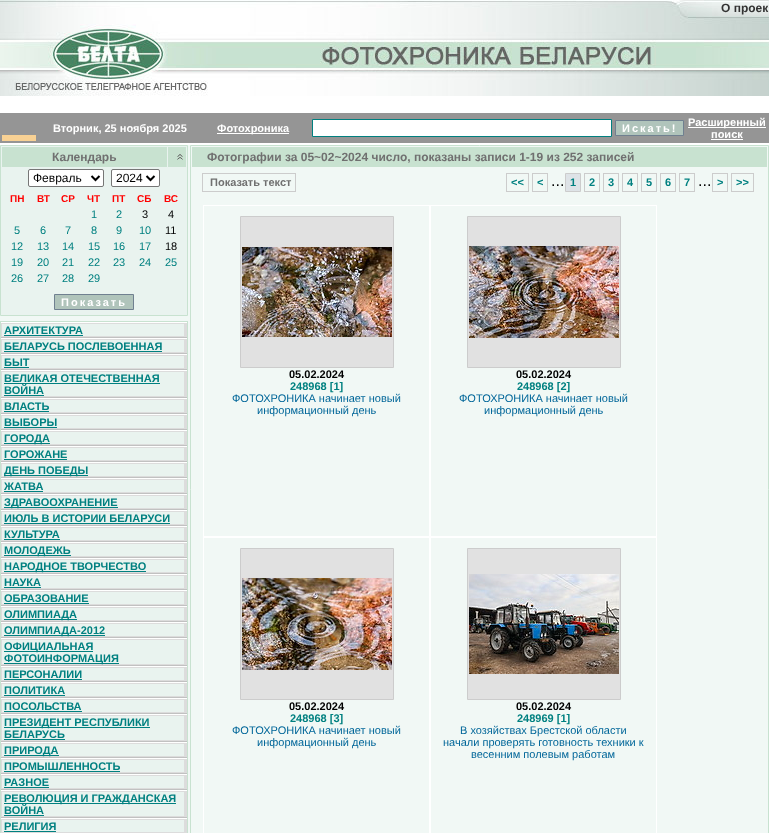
async function draw(canvas) {
  canvas.width = 769
  canvas.height = 833
  const ctx = canvas.getContext('2d')
  ctx.miterLimit = 4
  ctx.fontKerning = 'normal'
  async function loadImage(src) {
    const img = new Image()
    img.src = src
    await img.decode()
    return img
  }

  ctx.fillStyle = '#fff'
  ctx.fillRect(0, 0, 769, 833)
  ctx.drawImage(await loadImage('image0.png'), 0, 0, 769, 96)
  ctx.font = 'bold 12px Liberation Sans'
  ctx.fillStyle = '#333'
  ctx.fillText('О проек', 721, 12)
  ctx.fillStyle = '#959595'
  ctx.fillRect(0, 113, 769, 30)
  ctx.font = 'bold 11px Liberation Sans'
  ctx.fillStyle = '#fff'
  ctx.fillText('Вторник, 25 ноября 2025', 53, 132)
  ctx.fillRect(217, 133, 72, 1)
  ctx.fillText('Фотохроника', 217, 132)
  ctx.beginPath()
  ctx.rect(312.5, 119.5, 299, 17)
  ctx.fill()
  ctx.strokeStyle = '#008080'
  ctx.stroke()
  ctx.fillStyle = '#b0c4bb'
  ctx.beginPath()
  ctx.rect(615.5, 120.5, 68, 15)
  ctx.fill()
  ctx.strokeStyle = '#708090'
  ctx.stroke()
  ctx.letterSpacing = '2px'
  ctx.fillStyle = '#fff'
  ctx.fillText('Искать!', 622, 132)
  ctx.fillRect(688, 127, 78, 1)
  ctx.letterSpacing = '0px'
  ctx.fillText('Расширенный', 688, 126)
  ctx.fillText('поиск', 711, 138)
  ctx.fillRect(711, 139, 32, 1)
  ctx.fillStyle = '#f8d194'
  ctx.fillRect(2, 135, 34, 6)
  ctx.fillStyle = '#f1f8f5'
  ctx.fillRect(0, 145, 190, 688)
  ctx.fillStyle = '#e9f3ef'
  ctx.beginPath()
  ctx.rect(0.5, 145.5, 187, 170)
  ctx.fill()
  ctx.strokeStyle = '#c8e2d0'
  ctx.stroke()
  ctx.fillStyle = '#c8e2d0'
  ctx.fillRect(2, 147, 165, 20)
  ctx.font = 'bold 12px Liberation Sans'
  ctx.fillStyle = '#707070'
  ctx.fillText('Календарь', 52, 161)
  ctx.fillStyle = '#c8e2d0'
  ctx.fillRect(168, 147, 18, 20)
  ctx.drawImage(await loadImage('image1.png'), 177, 154, 6, 6)
  ctx.fillStyle = '#fff'
  ctx.beginPath()
  ctx.roundRect(28.5, 169.5, 75, 17, 1.5)
  ctx.fill()
  ctx.strokeStyle = '#767676'
  ctx.stroke()
  ctx.beginPath()
  ctx.moveTo(91.5, 176)
  ctx.lineTo(95.5, 180)
  ctx.lineTo(99.5, 176)
  ctx.strokeStyle = '#000'
  ctx.lineWidth = 2
  ctx.stroke()
  ctx.font = '12px Liberation Sans'
  ctx.fillStyle = '#000'
  ctx.fillText('Февраль', 33, 182)
  ctx.fillStyle = '#fff'
  ctx.beginPath()
  ctx.roundRect(111.5, 169.5, 48, 17, 1.5)
  ctx.fill()
  ctx.strokeStyle = '#767676'
  ctx.lineWidth = 1
  ctx.stroke()
  ctx.beginPath()
  ctx.moveTo(146.5, 176)
  ctx.lineTo(150.5, 180)
  ctx.lineTo(154.5, 176)
  ctx.strokeStyle = '#000'
  ctx.lineWidth = 2
  ctx.stroke()
  ctx.fillStyle = '#000'
  ctx.fillText('2024', 116, 182)
  ctx.font = 'bold 10px Liberation Sans'
  ctx.fillStyle = '#f00'
  ctx.fillText('ПН', 10, 202)
  ctx.fillText('ВТ', 37, 202)
  ctx.fillText('СР', 61, 202)
  ctx.fillText('ЧТ', 87, 202)
  ctx.fillText('ПТ', 112, 202)
  ctx.fillText('СБ', 137, 202)
  ctx.fillText('ВС', 164, 202)
  ctx.font = '11px Liberation Sans'
  ctx.fillStyle = '#008080'
  ctx.fillText('1', 91, 218)
  ctx.fillText('2', 116, 218)
  ctx.fillStyle = '#000'
  ctx.fillText('3', 142, 218)
  ctx.fillText('4', 168, 218)
  ctx.fillStyle = '#008080'
  ctx.fillText('5', 14, 234)
  ctx.fillText('6', 40, 234)
  ctx.fillText('7', 65, 234)
  ctx.fillText('8', 91, 234)
  ctx.fillText('9', 116, 234)
  ctx.fillText('10', 139, 234)
  ctx.fillStyle = '#000'
  ctx.fillText('11', 165, 234)
  ctx.fillStyle = '#008080'
  ctx.fillText('12', 11, 250)
  ctx.fillText('13', 37, 250)
  ctx.fillText('14', 62, 250)
  ctx.fillText('15', 88, 250)
  ctx.fillText('16', 113, 250)
  ctx.fillText('17', 139, 250)
  ctx.fillStyle = '#000'
  ctx.fillText('18', 165, 250)
  ctx.fillStyle = '#008080'
  ctx.fillText('19', 11, 266)
  ctx.fillText('20', 37, 266)
  ctx.fillText('21', 62, 266)
  ctx.fillText('22', 88, 266)
  ctx.fillText('23', 113, 266)
  ctx.fillText('24', 139, 266)
  ctx.fillText('25', 165, 266)
  ctx.fillText('26', 11, 282)
  ctx.fillText('27', 37, 282)
  ctx.fillText('28', 62, 282)
  ctx.fillText('29', 88, 282)
  ctx.fillStyle = '#b0c4bb'
  ctx.beginPath()
  ctx.rect(54.5, 294.5, 79, 15)
  ctx.fill()
  ctx.strokeStyle = '#708090'
  ctx.lineWidth = 1
  ctx.stroke()
  ctx.letterSpacing = '2px'
  ctx.font = 'bold 11px Liberation Sans'
  ctx.fillStyle = '#fff'
  ctx.fillText('Показать', 61, 306)
  ctx.strokeStyle = '#c8e2d0'
  ctx.strokeRect(0.5, 321.5, 187, 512)
  ctx.fillStyle = '#dcdcdc'
  ctx.fillRect(1, 323, 186, 14)
  ctx.fillStyle = '#fff'
  ctx.fillRect(1, 322, 186, 1)
  ctx.fillStyle = '#c1c1c1'
  ctx.fillRect(1, 337, 186, 1)
  ctx.fillStyle = '#e9f3ef'
  ctx.fillRect(2, 324, 182, 12)
  ctx.letterSpacing = '0px'
  ctx.fillStyle = '#008080'
  ctx.fillText('АРХИТЕКТУРА', 4, 334)
  ctx.fillRect(4, 335, 79, 1)
  ctx.fillStyle = '#dcdcdc'
  ctx.fillRect(1, 339, 186, 14)
  ctx.fillStyle = '#fff'
  ctx.fillRect(1, 338, 186, 1)
  ctx.fillStyle = '#c1c1c1'
  ctx.fillRect(1, 353, 186, 1)
  ctx.fillStyle = '#e9f3ef'
  ctx.fillRect(2, 340, 182, 12)
  ctx.fillStyle = '#008080'
  ctx.fillText('БЕЛАРУСЬ ПОСЛЕВОЕННАЯ', 4, 350)
  ctx.fillRect(4, 351, 158, 1)
  ctx.fillStyle = '#dcdcdc'
  ctx.fillRect(1, 355, 186, 14)
  ctx.fillStyle = '#fff'
  ctx.fillRect(1, 354, 186, 1)
  ctx.fillStyle = '#c1c1c1'
  ctx.fillRect(1, 369, 186, 1)
  ctx.fillStyle = '#e9f3ef'
  ctx.fillRect(2, 356, 182, 12)
  ctx.fillStyle = '#008080'
  ctx.fillText('БЫТ', 4, 366)
  ctx.fillRect(4, 367, 25, 1)
  ctx.fillStyle = '#dcdcdc'
  ctx.fillRect(1, 371, 186, 26)
  ctx.fillStyle = '#fff'
  ctx.fillRect(1, 370, 186, 1)
  ctx.fillStyle = '#c1c1c1'
  ctx.fillRect(1, 397, 186, 1)
  ctx.fillStyle = '#e9f3ef'
  ctx.fillRect(2, 372, 182, 24)
  ctx.fillStyle = '#008080'
  ctx.fillText('ВЕЛИКАЯ ОТЕЧЕСТВЕННАЯ', 4, 382)
  ctx.fillRect(4, 383, 156, 1)
  ctx.fillText('ВОЙНА', 4, 394)
  ctx.fillRect(4, 395, 40, 1)
  ctx.fillStyle = '#dcdcdc'
  ctx.fillRect(1, 399, 186, 14)
  ctx.fillStyle = '#fff'
  ctx.fillRect(1, 398, 186, 1)
  ctx.fillStyle = '#c1c1c1'
  ctx.fillRect(1, 413, 186, 1)
  ctx.fillStyle = '#e9f3ef'
  ctx.fillRect(2, 400, 182, 12)
  ctx.fillStyle = '#008080'
  ctx.fillText('ВЛАСТЬ', 4, 410)
  ctx.fillRect(4, 411, 45, 1)
  ctx.fillStyle = '#dcdcdc'
  ctx.fillRect(1, 415, 186, 14)
  ctx.fillStyle = '#fff'
  ctx.fillRect(1, 414, 186, 1)
  ctx.fillStyle = '#c1c1c1'
  ctx.fillRect(1, 429, 186, 1)
  ctx.fillStyle = '#e9f3ef'
  ctx.fillRect(2, 416, 182, 12)
  ctx.fillStyle = '#008080'
  ctx.fillText('ВЫБОРЫ', 4, 426)
  ctx.fillRect(4, 427, 53, 1)
  ctx.fillStyle = '#dcdcdc'
  ctx.fillRect(1, 431, 186, 14)
  ctx.fillStyle = '#fff'
  ctx.fillRect(1, 430, 186, 1)
  ctx.fillStyle = '#c1c1c1'
  ctx.fillRect(1, 445, 186, 1)
  ctx.fillStyle = '#e9f3ef'
  ctx.fillRect(2, 432, 182, 12)
  ctx.fillStyle = '#008080'
  ctx.fillRect(4, 443, 46, 1)
  ctx.fillText('ГОРОДА', 4, 442)
  ctx.fillStyle = '#dcdcdc'
  ctx.fillRect(1, 447, 186, 14)
  ctx.fillStyle = '#fff'
  ctx.fillRect(1, 446, 186, 1)
  ctx.fillStyle = '#c1c1c1'
  ctx.fillRect(1, 461, 186, 1)
  ctx.fillStyle = '#e9f3ef'
  ctx.fillRect(2, 448, 182, 12)
  ctx.fillStyle = '#008080'
  ctx.fillText('ГОРОЖАНЕ', 4, 458)
  ctx.fillRect(4, 459, 63, 1)
  ctx.fillStyle = '#dcdcdc'
  ctx.fillRect(1, 463, 186, 14)
  ctx.fillStyle = '#fff'
  ctx.fillRect(1, 462, 186, 1)
  ctx.fillStyle = '#c1c1c1'
  ctx.fillRect(1, 477, 186, 1)
  ctx.fillStyle = '#e9f3ef'
  ctx.fillRect(2, 464, 182, 12)
  ctx.fillStyle = '#008080'
  ctx.fillRect(4, 475, 84, 1)
  ctx.fillText('ДЕНЬ ПОБЕДЫ', 4, 474)
  ctx.fillStyle = '#dcdcdc'
  ctx.fillRect(1, 479, 186, 14)
  ctx.fillStyle = '#fff'
  ctx.fillRect(1, 478, 186, 1)
  ctx.fillStyle = '#c1c1c1'
  ctx.fillRect(1, 493, 186, 1)
  ctx.fillStyle = '#e9f3ef'
  ctx.fillRect(2, 480, 182, 12)
  ctx.fillStyle = '#008080'
  ctx.fillText('ЖАТВА', 4, 490)
  ctx.fillRect(4, 491, 39, 1)
  ctx.fillStyle = '#dcdcdc'
  ctx.fillRect(1, 495, 186, 14)
  ctx.fillStyle = '#fff'
  ctx.fillRect(1, 494, 186, 1)
  ctx.fillStyle = '#c1c1c1'
  ctx.fillRect(1, 509, 186, 1)
  ctx.fillStyle = '#e9f3ef'
  ctx.fillRect(2, 496, 182, 12)
  ctx.fillStyle = '#008080'
  ctx.fillRect(4, 507, 114, 1)
  ctx.fillText('ЗДРАВООХРАНЕНИЕ', 4, 506)
  ctx.fillStyle = '#dcdcdc'
  ctx.fillRect(1, 511, 186, 14)
  ctx.fillStyle = '#fff'
  ctx.fillRect(1, 510, 186, 1)
  ctx.fillStyle = '#c1c1c1'
  ctx.fillRect(1, 525, 186, 1)
  ctx.fillStyle = '#e9f3ef'
  ctx.fillRect(2, 512, 182, 12)
  ctx.fillStyle = '#008080'
  ctx.fillText('ИЮЛЬ В ИСТОРИИ БЕЛАРУСИ', 4, 522)
  ctx.fillRect(4, 523, 166, 1)
  ctx.fillStyle = '#dcdcdc'
  ctx.fillRect(1, 527, 186, 14)
  ctx.fillStyle = '#fff'
  ctx.fillRect(1, 526, 186, 1)
  ctx.fillStyle = '#c1c1c1'
  ctx.fillRect(1, 541, 186, 1)
  ctx.fillStyle = '#e9f3ef'
  ctx.fillRect(2, 528, 182, 12)
  ctx.fillStyle = '#008080'
  ctx.fillText('КУЛЬТУРА', 4, 538)
  ctx.fillRect(4, 539, 56, 1)
  ctx.fillStyle = '#dcdcdc'
  ctx.fillRect(1, 543, 186, 14)
  ctx.fillStyle = '#fff'
  ctx.fillRect(1, 542, 186, 1)
  ctx.fillStyle = '#c1c1c1'
  ctx.fillRect(1, 557, 186, 1)
  ctx.fillStyle = '#e9f3ef'
  ctx.fillRect(2, 544, 182, 12)
  ctx.fillStyle = '#008080'
  ctx.fillRect(4, 555, 67, 1)
  ctx.fillText('МОЛОДЕЖЬ', 4, 554)
  ctx.fillStyle = '#dcdcdc'
  ctx.fillRect(1, 559, 186, 14)
  ctx.fillStyle = '#fff'
  ctx.fillRect(1, 558, 186, 1)
  ctx.fillStyle = '#c1c1c1'
  ctx.fillRect(1, 573, 186, 1)
  ctx.fillStyle = '#e9f3ef'
  ctx.fillRect(2, 560, 182, 12)
  ctx.fillStyle = '#008080'
  ctx.fillRect(4, 571, 142, 1)
  ctx.fillText('НАРОДНОЕ ТВОРЧЕСТВО', 4, 570)
  ctx.fillStyle = '#dcdcdc'
  ctx.fillRect(1, 575, 186, 14)
  ctx.fillStyle = '#fff'
  ctx.fillRect(1, 574, 186, 1)
  ctx.fillStyle = '#c1c1c1'
  ctx.fillRect(1, 589, 186, 1)
  ctx.fillStyle = '#e9f3ef'
  ctx.fillRect(2, 576, 182, 12)
  ctx.fillStyle = '#008080'
  ctx.fillText('НАУКА', 4, 586)
  ctx.fillRect(4, 587, 37, 1)
  ctx.fillStyle = '#dcdcdc'
  ctx.fillRect(1, 591, 186, 14)
  ctx.fillStyle = '#fff'
  ctx.fillRect(1, 590, 186, 1)
  ctx.fillStyle = '#c1c1c1'
  ctx.fillRect(1, 605, 186, 1)
  ctx.fillStyle = '#e9f3ef'
  ctx.fillRect(2, 592, 182, 12)
  ctx.fillStyle = '#008080'
  ctx.fillText('ОБРАЗОВАНИЕ', 4, 602)
  ctx.fillRect(4, 603, 85, 1)
  ctx.fillStyle = '#dcdcdc'
  ctx.fillRect(1, 607, 186, 14)
  ctx.fillStyle = '#fff'
  ctx.fillRect(1, 606, 186, 1)
  ctx.fillStyle = '#c1c1c1'
  ctx.fillRect(1, 621, 186, 1)
  ctx.fillStyle = '#e9f3ef'
  ctx.fillRect(2, 608, 182, 12)
  ctx.fillStyle = '#008080'
  ctx.fillRect(4, 619, 73, 1)
  ctx.fillText('ОЛИМПИАДА', 4, 618)
  ctx.fillStyle = '#dcdcdc'
  ctx.fillRect(1, 623, 186, 14)
  ctx.fillStyle = '#fff'
  ctx.fillRect(1, 622, 186, 1)
  ctx.fillStyle = '#c1c1c1'
  ctx.fillRect(1, 637, 186, 1)
  ctx.fillStyle = '#e9f3ef'
  ctx.fillRect(2, 624, 182, 12)
  ctx.fillStyle = '#008080'
  ctx.fillRect(4, 635, 101, 1)
  ctx.fillText('ОЛИМПИАДА-2012', 4, 634)
  ctx.fillStyle = '#dcdcdc'
  ctx.fillRect(1, 639, 186, 26)
  ctx.fillStyle = '#fff'
  ctx.fillRect(1, 638, 186, 1)
  ctx.fillStyle = '#c1c1c1'
  ctx.fillRect(1, 665, 186, 1)
  ctx.fillStyle = '#e9f3ef'
  ctx.fillRect(2, 640, 182, 24)
  ctx.fillStyle = '#008080'
  ctx.fillRect(4, 651, 89, 1)
  ctx.fillText('ОФИЦИАЛЬНАЯ', 4, 650)
  ctx.fillRect(4, 663, 115, 1)
  ctx.fillText('ФОТОИНФОРМАЦИЯ', 4, 662)
  ctx.fillStyle = '#dcdcdc'
  ctx.fillRect(1, 667, 186, 14)
  ctx.fillStyle = '#fff'
  ctx.fillRect(1, 666, 186, 1)
  ctx.fillStyle = '#c1c1c1'
  ctx.fillRect(1, 681, 186, 1)
  ctx.fillStyle = '#e9f3ef'
  ctx.fillRect(2, 668, 182, 12)
  ctx.fillStyle = '#008080'
  ctx.fillText('ПЕРСОНАЛИИ', 4, 678)
  ctx.fillRect(4, 679, 78, 1)
  ctx.fillStyle = '#dcdcdc'
  ctx.fillRect(1, 683, 186, 14)
  ctx.fillStyle = '#fff'
  ctx.fillRect(1, 682, 186, 1)
  ctx.fillStyle = '#c1c1c1'
  ctx.fillRect(1, 697, 186, 1)
  ctx.fillStyle = '#e9f3ef'
  ctx.fillRect(2, 684, 182, 12)
  ctx.fillStyle = '#008080'
  ctx.fillText('ПОЛИТИКА', 4, 694)
  ctx.fillRect(4, 695, 61, 1)
  ctx.fillStyle = '#dcdcdc'
  ctx.fillRect(1, 699, 186, 14)
  ctx.fillStyle = '#fff'
  ctx.fillRect(1, 698, 186, 1)
  ctx.fillStyle = '#c1c1c1'
  ctx.fillRect(1, 713, 186, 1)
  ctx.fillStyle = '#e9f3ef'
  ctx.fillRect(2, 700, 182, 12)
  ctx.fillStyle = '#008080'
  ctx.fillText('ПОСОЛЬСТВА', 4, 710)
  ctx.fillRect(4, 711, 78, 1)
  ctx.fillStyle = '#dcdcdc'
  ctx.fillRect(1, 715, 186, 26)
  ctx.fillStyle = '#fff'
  ctx.fillRect(1, 714, 186, 1)
  ctx.fillStyle = '#c1c1c1'
  ctx.fillRect(1, 741, 186, 1)
  ctx.fillStyle = '#e9f3ef'
  ctx.fillRect(2, 716, 182, 24)
  ctx.fillStyle = '#008080'
  ctx.fillRect(4, 727, 146, 1)
  ctx.fillText('ПРЕЗИДЕНТ РЕСПУБЛИКИ', 4, 726)
  ctx.fillText('БЕЛАРУСЬ', 4, 738)
  ctx.fillRect(4, 739, 61, 1)
  ctx.fillStyle = '#dcdcdc'
  ctx.fillRect(1, 743, 186, 14)
  ctx.fillStyle = '#fff'
  ctx.fillRect(1, 742, 186, 1)
  ctx.fillStyle = '#c1c1c1'
  ctx.fillRect(1, 757, 186, 1)
  ctx.fillStyle = '#e9f3ef'
  ctx.fillRect(2, 744, 182, 12)
  ctx.fillStyle = '#008080'
  ctx.fillRect(4, 755, 55, 1)
  ctx.fillText('ПРИРОДА', 4, 754)
  ctx.fillStyle = '#dcdcdc'
  ctx.fillRect(1, 759, 186, 14)
  ctx.fillStyle = '#fff'
  ctx.fillRect(1, 758, 186, 1)
  ctx.fillStyle = '#c1c1c1'
  ctx.fillRect(1, 773, 186, 1)
  ctx.fillStyle = '#e9f3ef'
  ctx.fillRect(2, 760, 182, 12)
  ctx.fillStyle = '#008080'
  ctx.fillText('ПРОМЫШЛЕННОСТЬ', 4, 770)
  ctx.fillRect(4, 771, 116, 1)
  ctx.fillStyle = '#dcdcdc'
  ctx.fillRect(1, 775, 186, 14)
  ctx.fillStyle = '#fff'
  ctx.fillRect(1, 774, 186, 1)
  ctx.fillStyle = '#c1c1c1'
  ctx.fillRect(1, 789, 186, 1)
  ctx.fillStyle = '#e9f3ef'
  ctx.fillRect(2, 776, 182, 12)
  ctx.fillStyle = '#008080'
  ctx.fillText('РАЗНОЕ', 4, 786)
  ctx.fillRect(4, 787, 45, 1)
  ctx.fillStyle = '#dcdcdc'
  ctx.fillRect(1, 791, 186, 26)
  ctx.fillStyle = '#fff'
  ctx.fillRect(1, 790, 186, 1)
  ctx.fillStyle = '#c1c1c1'
  ctx.fillRect(1, 817, 186, 1)
  ctx.fillStyle = '#e9f3ef'
  ctx.fillRect(2, 792, 182, 24)
  ctx.fillStyle = '#008080'
  ctx.fillRect(4, 803, 172, 1)
  ctx.fillText('РЕВОЛЮЦИЯ И ГРАЖДАНСКАЯ', 4, 802)
  ctx.fillText('ВОЙНА', 4, 814)
  ctx.fillRect(4, 815, 40, 1)
  ctx.fillStyle = '#dcdcdc'
  ctx.fillRect(1, 819, 186, 14)
  ctx.fillStyle = '#fff'
  ctx.fillRect(1, 818, 186, 1)
  ctx.fillStyle = '#e9f3ef'
  ctx.fillRect(2, 820, 182, 12)
  ctx.fillStyle = '#008080'
  ctx.fillText('РЕЛИГИЯ', 4, 830)
  ctx.fillRect(4, 831, 52, 1)
  ctx.fillStyle = '#f1f8f5'
  ctx.beginPath()
  ctx.rect(190.5, 145.5, 578, 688)
  ctx.fill()
  ctx.stroke()
  ctx.fillStyle = '#c8e2d0'
  ctx.fillRect(192, 147, 575, 20)
  ctx.font = 'bold 12px Liberation Sans'
  ctx.fillStyle = '#707070'
  ctx.fillText('Фотографии за 05~02~2024 число, показаны записи 1-19 из 252 записей', 207, 161)
  ctx.strokeStyle = '#ccc'
  ctx.strokeRect(202.5, 173.5, 93, 18)
  ctx.font = 'bold 11px Liberation Sans'
  ctx.fillText('Показать текст', 210, 186)
  ctx.strokeRect(506.5, 173.5, 22, 18)
  ctx.fillStyle = '#008080'
  ctx.fillText('<<', 511, 186)
  ctx.strokeRect(532.5, 173.5, 15, 18)
  ctx.fillText('<', 537, 186)
  ctx.font = '16px Liberation Sans'
  ctx.fillStyle = '#000'
  ctx.fillText('...', 551, 186)
  ctx.fillStyle = '#dee3e7'
  ctx.beginPath()
  ctx.rect(565.5, 173.5, 15, 18)
  ctx.fill()
  ctx.stroke()
  ctx.font = 'bold 11px Liberation Sans'
  ctx.fillStyle = '#008080'
  ctx.fillText('1', 570, 186)
  ctx.strokeRect(584.5, 173.5, 15, 18)
  ctx.fillText('2', 589, 186)
  ctx.strokeRect(603.5, 173.5, 15, 18)
  ctx.fillText('3', 608, 186)
  ctx.strokeRect(622.5, 173.5, 15, 18)
  ctx.fillText('4', 627, 186)
  ctx.strokeRect(641.5, 173.5, 15, 18)
  ctx.fillText('5', 646, 186)
  ctx.strokeRect(660.5, 173.5, 15, 18)
  ctx.fillText('6', 665, 186)
  ctx.strokeRect(679.5, 173.5, 15, 18)
  ctx.fillText('7', 684, 186)
  ctx.font = '16px Liberation Sans'
  ctx.fillStyle = '#000'
  ctx.fillText('...', 698, 186)
  ctx.strokeRect(712.5, 173.5, 15, 18)
  ctx.font = 'bold 11px Liberation Sans'
  ctx.fillStyle = '#008080'
  ctx.fillText('>', 717, 186)
  ctx.strokeRect(731.5, 173.5, 22, 18)
  ctx.fillText('>>', 736, 186)
  ctx.strokeStyle = '#fff'
  ctx.strokeRect(203.5, 205.5, 226, 331)
  ctx.fillStyle = '#e1e1e1'
  ctx.beginPath()
  ctx.rect(240.5, 216.5, 153, 151)
  ctx.fill()
  ctx.strokeStyle = '#ccc'
  ctx.stroke()
  ctx.drawImage(await loadImage('image2.png'), 242, 247, 150, 90)
  ctx.fillStyle = '#000'
  ctx.fillText('05.02.2024', 289, 378)
  ctx.fillStyle = '#008080'
  ctx.fillText('248968 [1]', 290, 390)
  ctx.font = '11px Liberation Sans'
  ctx.fillStyle = '#069'
  ctx.fillText('ФОТОХРОНИКА начинает новый', 232, 402)
  ctx.fillText('информационный день', 257, 414)
  ctx.strokeStyle = '#fff'
  ctx.strokeRect(430.5, 205.5, 226, 331)
  ctx.fillStyle = '#e1e1e1'
  ctx.beginPath()
  ctx.rect(467.5, 216.5, 153, 151)
  ctx.fill()
  ctx.strokeStyle = '#ccc'
  ctx.stroke()
  ctx.drawImage(await loadImage('image3.png'), 469, 246, 150, 92)
  ctx.font = 'bold 11px Liberation Sans'
  ctx.fillStyle = '#000'
  ctx.fillText('05.02.2024', 516, 378)
  ctx.fillStyle = '#008080'
  ctx.fillText('248968 [2]', 517, 390)
  ctx.font = '11px Liberation Sans'
  ctx.fillStyle = '#069'
  ctx.fillText('ФОТОХРОНИКА начинает новый', 459, 402)
  ctx.fillText('информационный день', 484, 414)
  ctx.strokeStyle = '#fff'
  ctx.strokeRect(203.5, 537.5, 226, 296)
  ctx.fillStyle = '#e1e1e1'
  ctx.beginPath()
  ctx.rect(240.5, 548.5, 153, 151)
  ctx.fill()
  ctx.strokeStyle = '#ccc'
  ctx.stroke()
  ctx.drawImage(await loadImage('image4.png'), 242, 578, 150, 92)
  ctx.font = 'bold 11px Liberation Sans'
  ctx.fillStyle = '#000'
  ctx.fillText('05.02.2024', 289, 710)
  ctx.fillStyle = '#008080'
  ctx.fillText('248968 [3]', 290, 722)
  ctx.font = '11px Liberation Sans'
  ctx.fillStyle = '#069'
  ctx.fillText('ФОТОХРОНИКА начинает новый', 232, 734)
  ctx.fillText('информационный день', 257, 746)
  ctx.strokeStyle = '#fff'
  ctx.strokeRect(430.5, 537.5, 226, 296)
  ctx.fillStyle = '#e1e1e1'
  ctx.beginPath()
  ctx.rect(467.5, 548.5, 153, 151)
  ctx.fill()
  ctx.strokeStyle = '#ccc'
  ctx.stroke()
  ctx.drawImage(await loadImage('image5.png'), 469, 574, 150, 100)
  ctx.font = 'bold 11px Liberation Sans'
  ctx.fillStyle = '#000'
  ctx.fillText('05.02.2024', 516, 710)
  ctx.fillStyle = '#008080'
  ctx.fillText('248969 [1]', 517, 722)
  ctx.font = '11px Liberation Sans'
  ctx.fillStyle = '#069'
  ctx.fillText('В хозяйствах Брестской области', 460, 734)
  ctx.fillText('начали проверять готовность техники к', 443, 746)
  ctx.fillText('весенним полевым работам', 471, 758)
}

draw(document.querySelector('canvas'))
